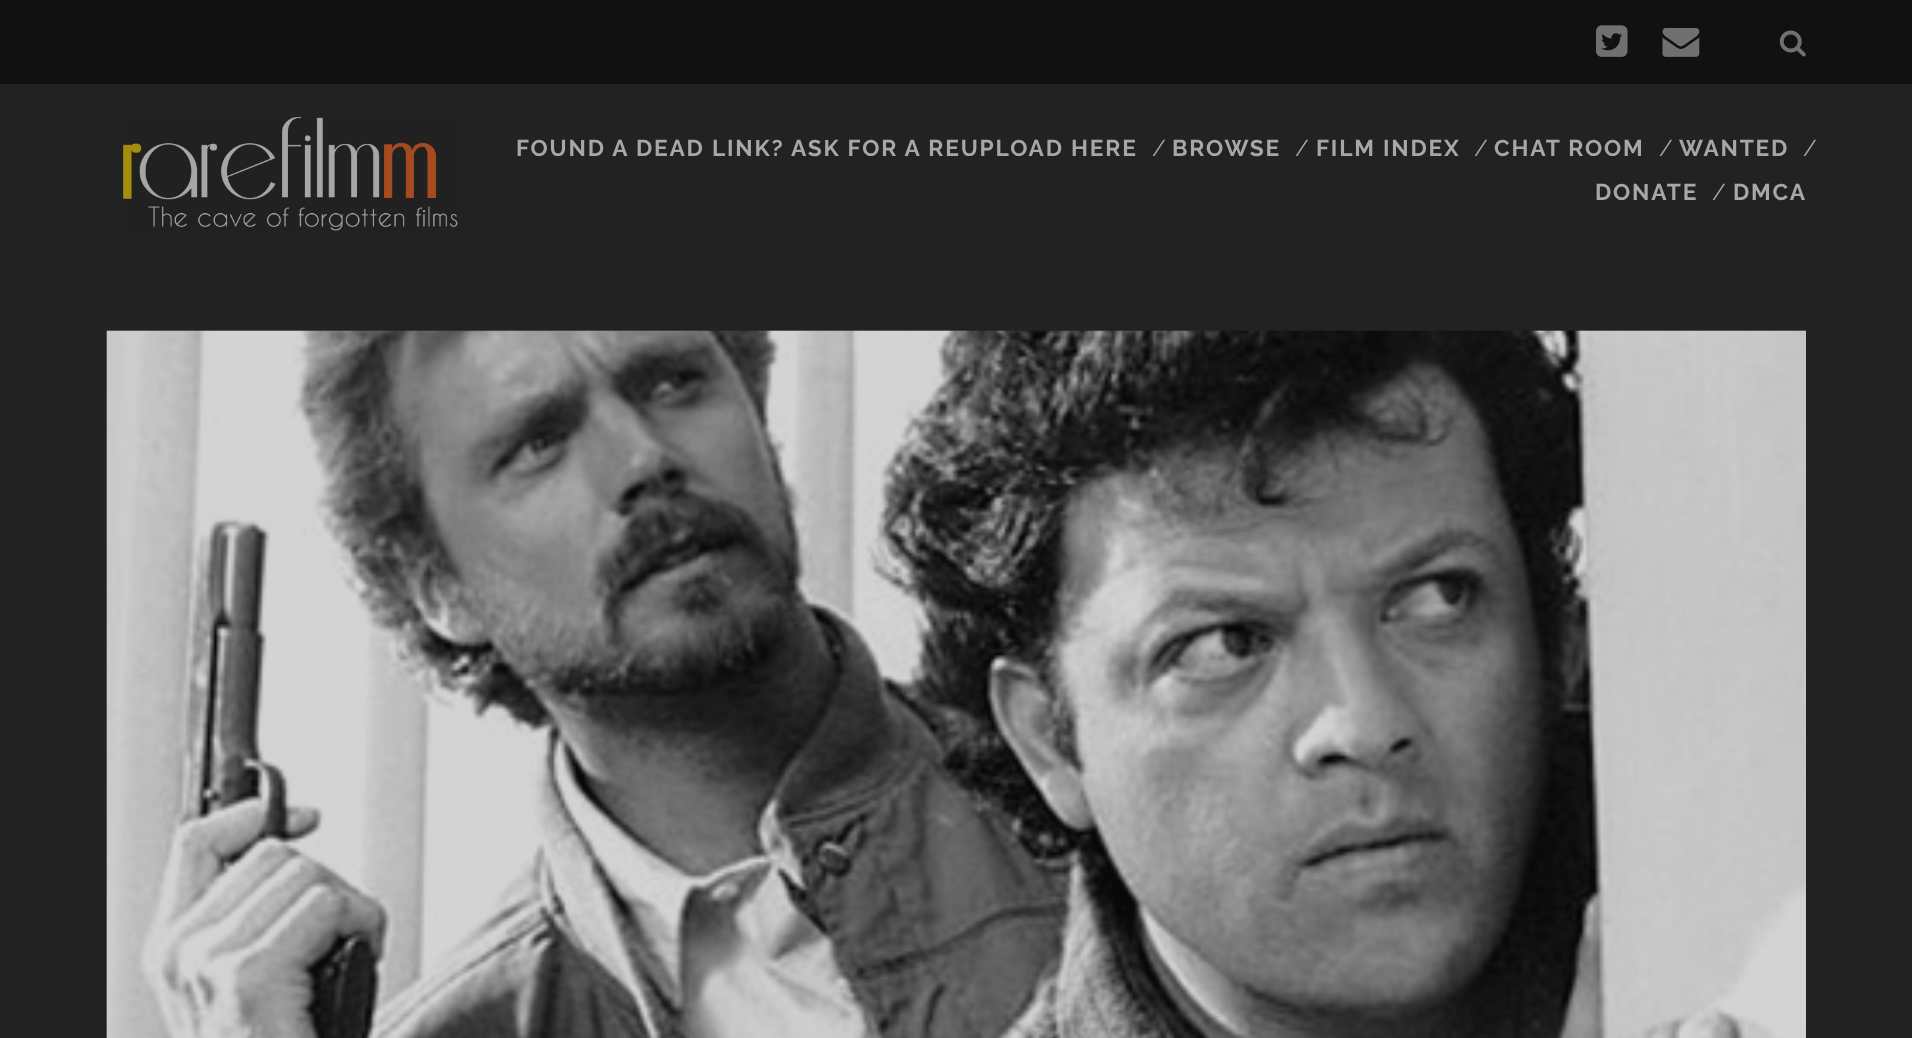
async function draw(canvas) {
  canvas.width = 1912
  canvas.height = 1038
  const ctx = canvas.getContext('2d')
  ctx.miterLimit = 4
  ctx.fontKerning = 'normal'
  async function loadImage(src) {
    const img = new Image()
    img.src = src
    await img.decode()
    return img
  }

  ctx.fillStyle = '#222'
  ctx.fillRect(0, 0, 1912, 1038)
  ctx.fillStyle = '#111'
  ctx.fillRect(0, 0, 1912, 84)
  ctx.drawImage(await loadImage('image0.png'), 1596, 25, 32, 32)
  ctx.drawImage(await loadImage('image1.png'), 1662, 28, 38, 29)
  ctx.drawImage(await loadImage('image2.png'), 1779, 30, 27, 27)
  ctx.drawImage(await loadImage('image3.png'), 123, 117, 335, 114)
  ctx.letterSpacing = '1.8px'
  ctx.font = 'bold 22.75px Raleway'
  ctx.fillStyle = '#a7a7a7'
  ctx.fillText('FOUND A DEAD LINK? ASK FOR A REUPLOAD HERE', 516, 156)
  ctx.letterSpacing = '0px'
  ctx.font = '22.75px Raleway'
  ctx.fillText('/', 1152, 156)
  ctx.letterSpacing = '1.8px'
  ctx.font = 'bold 22.75px Raleway'
  ctx.fillText('BROWSE', 1172, 156)
  ctx.letterSpacing = '0px'
  ctx.font = '22.75px Raleway'
  ctx.fillText('/', 1295, 156)
  ctx.letterSpacing = '1.8px'
  ctx.font = 'bold 22.75px Raleway'
  ctx.fillText('FILM INDEX', 1316, 156)
  ctx.letterSpacing = '0px'
  ctx.font = '22.75px Raleway'
  ctx.fillText('/', 1474, 156)
  ctx.letterSpacing = '1.8px'
  ctx.font = 'bold 22.75px Raleway'
  ctx.fillText('CHAT ROOM', 1494, 156)
  ctx.letterSpacing = '0px'
  ctx.font = '22.75px Raleway'
  ctx.fillText('/', 1659, 156)
  ctx.letterSpacing = '1.8px'
  ctx.font = 'bold 22.75px Raleway'
  ctx.fillText('WANTED', 1679, 156)
  ctx.letterSpacing = '0px'
  ctx.font = '22.75px Raleway'
  ctx.fillText('/', 1803, 156)
  ctx.letterSpacing = '1.8px'
  ctx.font = 'bold 22.75px Raleway'
  ctx.fillText('DONATE', 1595, 200)
  ctx.letterSpacing = '0px'
  ctx.font = '22.75px Raleway'
  ctx.fillText('/', 1712, 200)
  ctx.letterSpacing = '1.8px'
  ctx.font = 'bold 22.75px Raleway'
  ctx.fillText('DMCA', 1733, 200)
  ctx.drawImage(await loadImage('image4.png'), 106, 330, 1700, 708)
}

draw(document.querySelector('canvas'))
